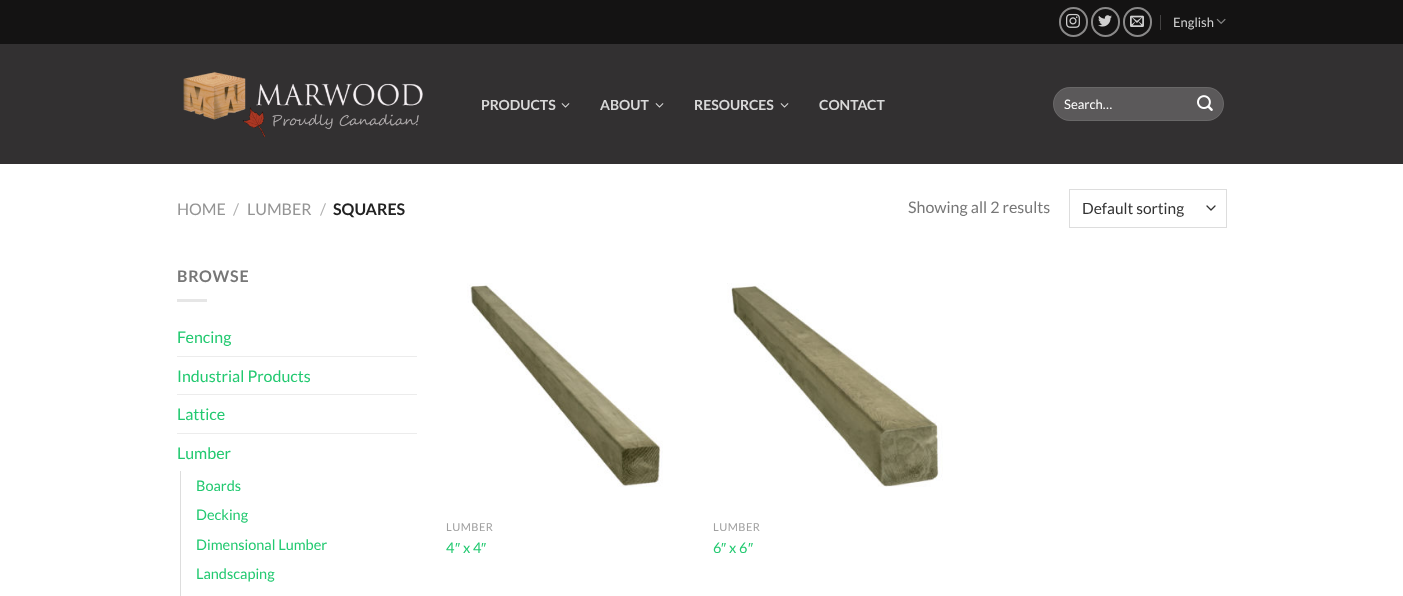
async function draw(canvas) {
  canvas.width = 1403
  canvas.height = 596
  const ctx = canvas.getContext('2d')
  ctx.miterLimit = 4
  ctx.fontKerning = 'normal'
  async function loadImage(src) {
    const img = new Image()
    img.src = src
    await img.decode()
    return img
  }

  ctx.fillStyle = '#fff'
  ctx.fillRect(0, 0, 1403, 596)
  ctx.fillStyle = '#141313'
  ctx.fillRect(0, 0, 1403, 44)
  ctx.beginPath()
  ctx.roundRect(1060, 8, 27, 28, 13.5)
  ctx.strokeStyle = '#8a8989'
  ctx.lineWidth = 2
  ctx.stroke()
  ctx.drawImage(await loadImage('image0.png'), 1066, 13, 14, 15)
  ctx.beginPath()
  ctx.roundRect(1092, 8, 27, 28, 13.5)
  ctx.stroke()
  ctx.drawImage(await loadImage('image1.png'), 1098, 15, 14, 12)
  ctx.beginPath()
  ctx.roundRect(1124, 8, 27, 28, 13.5)
  ctx.stroke()
  ctx.drawImage(await loadImage('image2.png'), 1130, 15, 14, 12)
  ctx.fillStyle = '#434242'
  ctx.fillRect(1160, 15, 1, 15)
  ctx.font = '13px Lato'
  ctx.fillStyle = '#d0d0d0'
  ctx.fillText('English', 1173, 27)
  ctx.drawImage(await loadImage('image3.png'), 1216, 18, 10, 6)
  ctx.fillStyle = '#323031'
  ctx.fillRect(0, 44, 1403, 120)
  ctx.drawImage(await loadImage('image4.png'), 183, 71, 240, 66)
  ctx.font = 'bold 14px Lato'
  ctx.fillStyle = '#d9d9d9'
  ctx.fillText('PRODUCTS', 481, 110)
  ctx.drawImage(await loadImage('image5.png'), 561, 103, 9, 5)
  ctx.fillText('ABOUT', 600, 110)
  ctx.drawImage(await loadImage('image5.png'), 655, 103, 9, 5)
  ctx.fillText('RESOURCES', 694, 110)
  ctx.drawImage(await loadImage('image5.png'), 780, 103, 9, 5)
  ctx.fillText('CONTACT', 819, 110)
  ctx.fillStyle = '#5b595a'
  ctx.beginPath()
  ctx.roundRect(1053, 87, 171, 34, 17)
  ctx.fill()
  ctx.beginPath()
  ctx.roundRect(1053.5, 87.5, 170, 33, 16.5)
  ctx.strokeStyle = '#ffffff17'
  ctx.lineWidth = 1
  ctx.stroke()
  ctx.font = '13px Lato'
  ctx.fillStyle = '#fff'
  ctx.fillText('Search…', 1064, 109)
  ctx.drawImage(await loadImage('image6.png'), 1197, 95, 16, 16)
  ctx.font = '16px Lato'
  ctx.fillStyle = '#949494'
  ctx.fillText('HOME', 177, 215)
  ctx.fillStyle = '#b2b2b2'
  ctx.fillText('/', 233, 215)
  ctx.fillStyle = '#949494'
  ctx.fillText('LUMBER', 247, 215)
  ctx.fillStyle = '#b2b2b2'
  ctx.fillText('/', 320, 215)
  ctx.font = 'bold 16px Lato'
  ctx.fillStyle = '#222'
  ctx.fillText('SQUARES', 333, 215)
  ctx.font = '16px Lato'
  ctx.fillStyle = '#777'
  ctx.fillText('Showing all 2 results', 908, 213)
  ctx.beginPath()
  ctx.moveTo(1207, 206)
  ctx.lineTo(1211, 210)
  ctx.lineTo(1215, 206)
  ctx.strokeStyle = '#333'
  ctx.lineWidth = 1.3
  ctx.lineCap = 'round'
  ctx.lineJoin = 'round'
  ctx.stroke()
  ctx.strokeStyle = '#ddd'
  ctx.lineWidth = 1
  ctx.lineJoin = 'miter'
  ctx.strokeRect(1069.5, 189.5, 157, 38)
  ctx.font = '15.5px Lato'
  ctx.fillStyle = '#333'
  ctx.fillText('Default sorting', 1082, 214)
  ctx.letterSpacing = '0.75px'
  ctx.font = 'bold 16px Lato'
  ctx.fillStyle = '#777'
  ctx.fillText('BROWSE', 177, 282)
  ctx.fillStyle = '#e6e6e6'
  ctx.fillRect(177, 299, 30, 3)
  ctx.letterSpacing = '0px'
  ctx.font = '16px Lato'
  ctx.fillStyle = '#22c970'
  ctx.fillText('Fencing', 177, 343)
  ctx.fillStyle = '#ececec'
  ctx.fillRect(177, 356, 240, 1)
  ctx.fillStyle = '#22c970'
  ctx.fillText('Industrial Products', 177, 382)
  ctx.fillStyle = '#ececec'
  ctx.fillRect(177, 394, 240, 1)
  ctx.fillStyle = '#22c970'
  ctx.fillText('Lattice', 177, 420)
  ctx.fillStyle = '#ececec'
  ctx.fillRect(177, 433, 240, 1)
  ctx.fillStyle = '#22c970'
  ctx.fillText('Lumber', 177, 459)
  ctx.fillStyle = '#ddd'
  ctx.fillRect(180, 471, 1, 125)
  ctx.font = '14.5px Lato'
  ctx.fillStyle = '#22c970'
  ctx.fillText('Boards', 196, 491)
  ctx.fillText('Decking', 196, 520)
  ctx.fillText('Dimensional Lumber', 196, 550)
  ctx.fillText('Landscaping', 196, 579)
  ctx.drawImage(await loadImage('image7.png'), 467, 283, 196, 204)
  ctx.letterSpacing = '0.5px'
  ctx.font = '11px Lato'
  ctx.fillStyle = '#a0a0a0'
  ctx.fillText('LUMBER', 446, 531)
  ctx.letterSpacing = '0px'
  ctx.font = '14.5px Lato'
  ctx.fillStyle = '#22c970'
  ctx.fillText('4', 446, 553)
  ctx.font = '14.5px Liberation Sans'
  ctx.fillText('″', 455, 553)
  ctx.font = '14.5px Lato'
  ctx.fillText('x 4', 463, 553)
  ctx.font = '14.5px Liberation Sans'
  ctx.fillText('″', 481, 553)
  ctx.drawImage(await loadImage('image8.png'), 727, 283, 216, 204)
  ctx.letterSpacing = '0.5px'
  ctx.font = '11px Lato'
  ctx.fillStyle = '#a0a0a0'
  ctx.fillText('LUMBER', 713, 531)
  ctx.letterSpacing = '0px'
  ctx.font = '14.5px Lato'
  ctx.fillStyle = '#22c970'
  ctx.fillText('6', 713, 553)
  ctx.font = '14.5px Liberation Sans'
  ctx.fillText('″', 721, 553)
  ctx.font = '14.5px Lato'
  ctx.fillText('x 6', 729, 553)
  ctx.font = '14.5px Liberation Sans'
  ctx.fillText('″', 748, 553)
}

draw(document.querySelector('canvas'))
